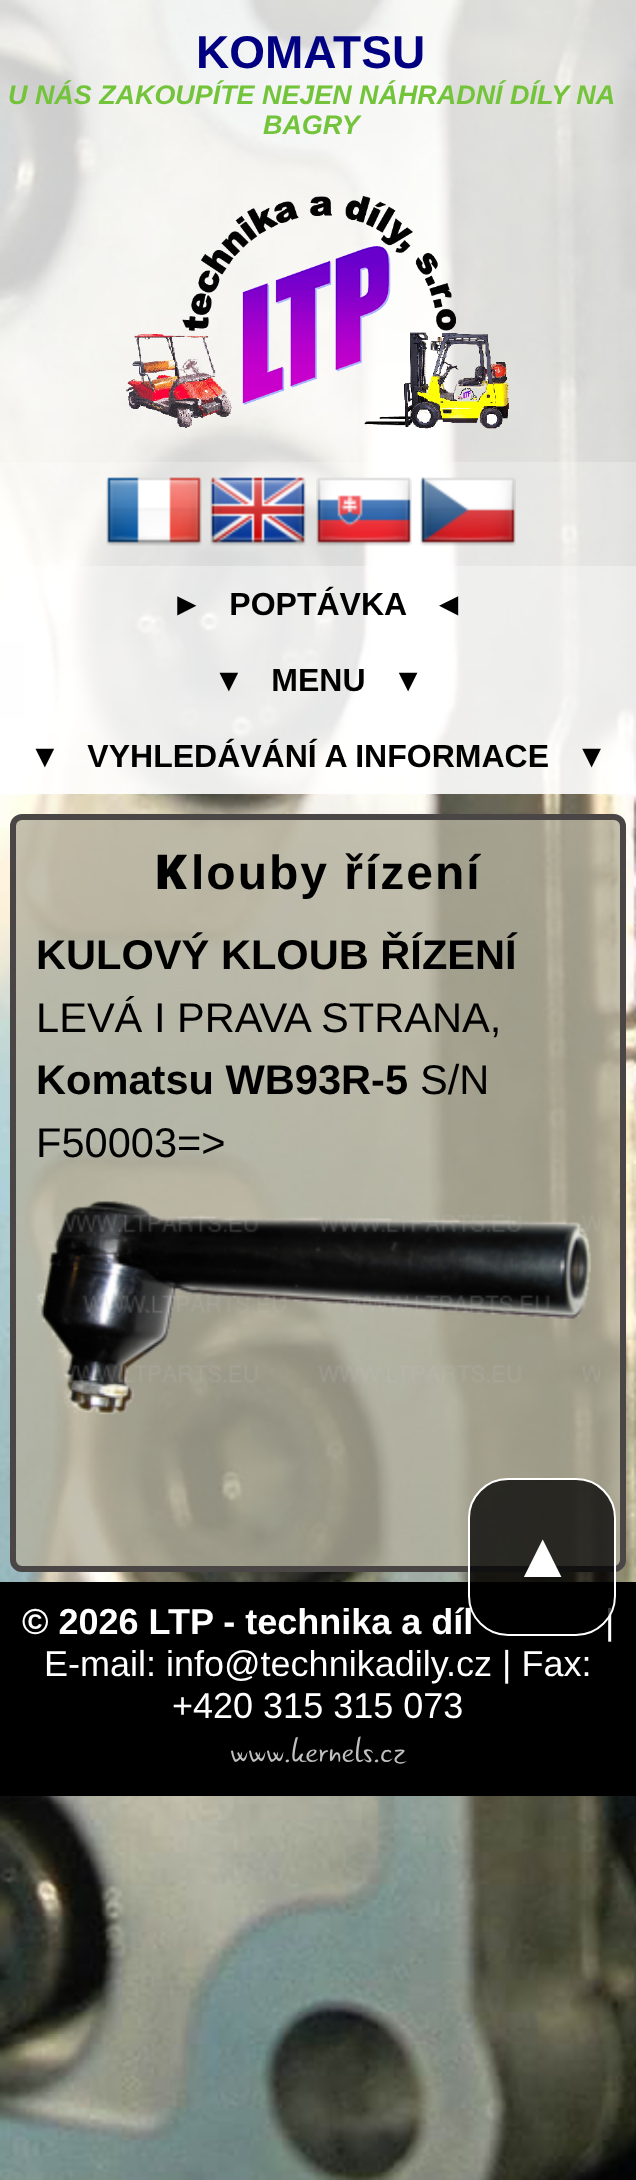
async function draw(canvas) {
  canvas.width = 636
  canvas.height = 2180
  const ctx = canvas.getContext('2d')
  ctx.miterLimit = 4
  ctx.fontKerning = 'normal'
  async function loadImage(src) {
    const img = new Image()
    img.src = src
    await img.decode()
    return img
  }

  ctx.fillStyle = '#fff'
  ctx.fillRect(0, 0, 636, 2180)
  ctx.drawImage(await loadImage('image0.png'), 0, 0, 636, 2180)
  ctx.fillStyle = '#ffffffcc'
  ctx.fillRect(0, 0, 636, 462)
  ctx.font = 'bold 46px Liberation Sans'
  ctx.fillStyle = '#000080'
  ctx.fillText('KOMATSU', 196, 68)
  ctx.font = 'italic bold 26.9px Liberation Sans'
  ctx.fillStyle = '#73c43b'
  ctx.fillText('U NÁS ZAKOUPÍTE NEJEN NÁHRADNÍ DÍLY NA', 8, 104)
  ctx.fillText('BAGRY', 263, 134)
  ctx.drawImage(await loadImage('image1.png'), 126, 196, 383, 233)
  ctx.fillStyle = '#ffffffd9'
  ctx.fillRect(0, 462, 636, 104)
  ctx.drawImage(await loadImage('image2.png'), 106, 477, 96, 69)
  ctx.drawImage(await loadImage('image3.png'), 210, 477, 96, 69)
  ctx.drawImage(await loadImage('image4.png'), 316, 477, 96, 69)
  ctx.drawImage(await loadImage('image5.png'), 420, 477, 96, 69)
  ctx.fillStyle = '#ffffffe6'
  ctx.fillRect(0, 566, 636, 76)
  ctx.font = 'bold 32px Liberation Sans'
  ctx.fillStyle = '#000'
  ctx.fillText('►   POPTÁVKA   ◄', 171, 615)
  ctx.fillStyle = '#ffffffe6'
  ctx.fillRect(24, 642, 612, 76)
  ctx.fillStyle = '#000'
  ctx.fillText('▼   MENU   ▼', 213, 691)
  ctx.fillStyle = '#ffffffe6'
  ctx.fillRect(0, 718, 636, 76)
  ctx.fillStyle = '#000'
  ctx.fillText('▼   VYHLEDÁVÁNÍ A INFORMACE   ▼', 29, 767)
  ctx.fillStyle = '#b4b09dcc'
  ctx.beginPath()
  ctx.roundRect(13, 817, 610, 752, 9)
  ctx.fill()
  ctx.strokeStyle = '#4a4646'
  ctx.lineWidth = 6
  ctx.stroke()
  ctx.letterSpacing = '2px'
  ctx.font = '900 48px Noto Sans'
  ctx.fillStyle = '#000'
  ctx.fillText('K', 154, 889)
  ctx.font = 'bold 48px Liberation Sans'
  ctx.fillText('louby řízení', 191, 889)
  ctx.letterSpacing = '0px'
  ctx.font = 'bold 41.6px Liberation Sans'
  ctx.fillText('KULOVÝ KLOUB ŘÍZENÍ', 36, 969)
  ctx.font = '41.6px Liberation Sans'
  ctx.fillText('LEVÁ I PRAVA STRANA,', 36, 1032)
  ctx.font = 'bold 41.6px Liberation Sans'
  ctx.fillText('Komatsu WB93R-5', 36, 1094)
  ctx.font = '41.6px Liberation Sans'
  ctx.fillText('S/N', 420, 1094)
  ctx.fillText('F50003=>', 36, 1157)
  ctx.drawImage(await loadImage('image6.png'), 36, 1200, 564, 215)
  ctx.fillRect(0, 1582, 636, 214)
  ctx.font = 'bold 36px Liberation Sans'
  ctx.fillStyle = '#fff'
  ctx.fillText('© 2026 LTP - technika a díl', 22, 1634)
  ctx.font = '36px Liberation Sans'
  ctx.fillText('|', 605, 1634)
  ctx.fillStyle = '#000000bf'
  ctx.beginPath()
  ctx.roundRect(469, 1479, 146, 156, 39)
  ctx.fill()
  ctx.strokeStyle = '#fff'
  ctx.lineWidth = 2
  ctx.stroke()
  ctx.font = '64px Liberation Sans'
  ctx.fillStyle = '#fff'
  ctx.fillText('▲', 511, 1577)
  ctx.font = '36px Liberation Sans'
  ctx.fillText('E-mail: info@technikadily.cz | Fax:', 44, 1676)
  ctx.fillText('+420 315 315 073', 172, 1718)
  ctx.font = '36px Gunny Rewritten'
  ctx.fillStyle = '#c0c0c0'
  ctx.fillText('www.kernels.cz', 230, 1762)
}

draw(document.querySelector('canvas'))
